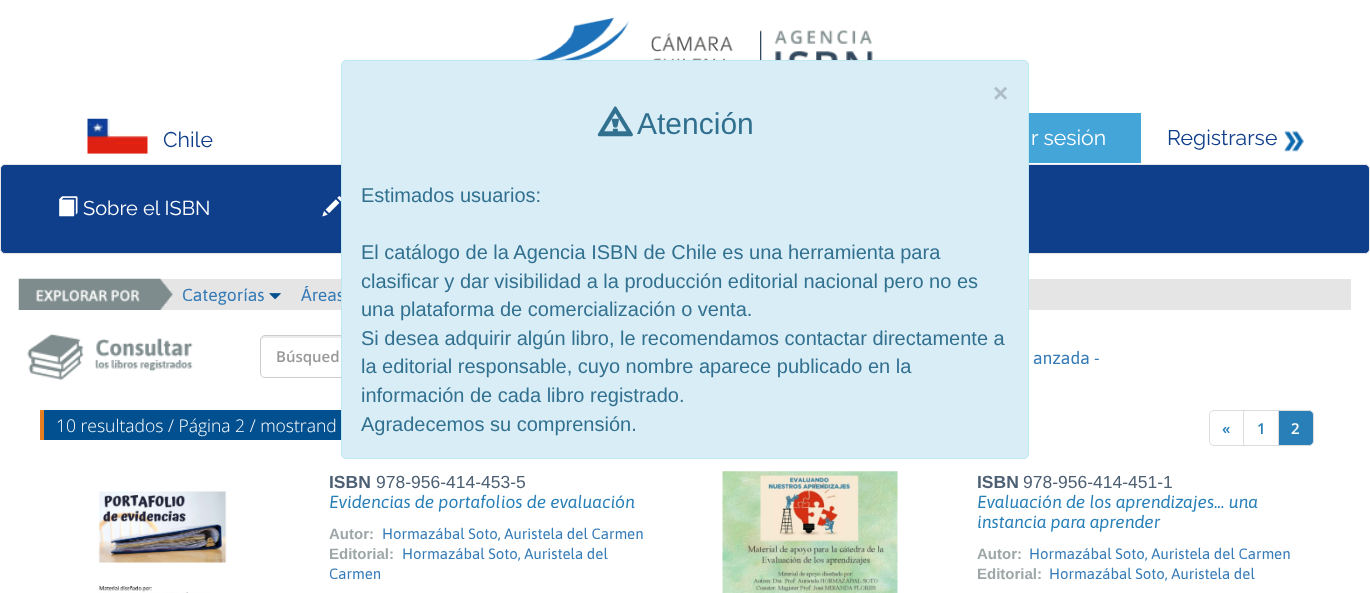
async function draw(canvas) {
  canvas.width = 1370
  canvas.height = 593
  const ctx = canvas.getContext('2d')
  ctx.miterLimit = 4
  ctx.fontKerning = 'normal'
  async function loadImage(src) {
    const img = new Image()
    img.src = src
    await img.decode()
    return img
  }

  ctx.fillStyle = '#fff'
  ctx.fillRect(0, 0, 1370, 593)
  ctx.fillStyle = '#0f3e8b'
  ctx.beginPath()
  ctx.roundRect(0.5, 164.5, 1369, 89, 4.5)
  ctx.fill()
  ctx.strokeStyle = '#e7e7e7'
  ctx.stroke()
  ctx.fillStyle = '#e5e5e5'
  ctx.fillRect(161, 279, 1190, 31)
  ctx.font = '17.5px Asap'
  ctx.fillStyle = '#337ab7'
  ctx.fillText('Áreas', 301, 301)
  ctx.fillStyle = '#ececec'
  ctx.beginPath()
  ctx.moveTo(265, 338)
  ctx.lineTo(839, 338)
  ctx.lineTo(839, 336)
  ctx.lineTo(265, 336)
  ctx.bezierCurveTo(262, 336, 261, 338, 261, 341)
  ctx.bezierCurveTo(261, 339, 263, 338, 265, 338)
  ctx.closePath()
  ctx.fill()
  ctx.beginPath()
  ctx.roundRect(260.5, 335.5, 579, 42, [4.5, 0, 0, 4.5])
  ctx.strokeStyle = '#ccc'
  ctx.stroke()
  ctx.fillStyle = '#d9edf7'
  ctx.beginPath()
  ctx.roundRect(341.5, 60.5, 687, 398, 4.5)
  ctx.fill()
  ctx.strokeStyle = '#bce8f1'
  ctx.stroke()
  ctx.font = 'bold 26px Liberation Sans'
  ctx.fillStyle = '#aebec6'
  ctx.fillText('×', 993, 102)
  ctx.drawImage(await loadImage('image0.png'), 597, 106, 36, 31)
  ctx.font = '30px Liberation Sans'
  ctx.fillStyle = '#31708f'
  ctx.fillText('Atención', 637, 134)
  ctx.font = '20px Liberation Sans'
  ctx.fillText('Estimados usuarios:', 361, 202)
  ctx.fillText('El catálogo de la Agencia ISBN de Chile es una herramienta para', 361, 259)
  ctx.fillText('clasificar y dar visibilidad a la producción editorial nacional pero no es', 361, 288)
  ctx.fillText('una plataforma de comercialización o venta.', 361, 316)
  ctx.fillText('Si desea adquirir algún libro, le recomendamos contactar directamente a', 361, 345)
  ctx.fillText('la editorial responsable, cuyo nombre aparece publicado en la', 361, 373)
  ctx.fillText('información de cada libro registrado.', 361, 402)
  ctx.fillText('Agradecemos su comprensión.', 361, 431)
  ctx.drawImage(await loadImage('image1.png'), 501, 17, 244, 43)
  ctx.drawImage(await loadImage('image2.png'), 760, 30, 113, 30)
  ctx.drawImage(await loadImage('image3.png'), 87, 118, 61, 36)
  ctx.font = '100 21.25px Raleway'
  ctx.fillStyle = '#0f3e8b'
  ctx.fillText('Chile', 163, 147)
  ctx.fillStyle = '#44a5d9'
  ctx.fillRect(1029, 113, 112, 50)
  ctx.fillStyle = '#fff'
  ctx.fillText('r sesión', 1031, 145)
  ctx.fillStyle = '#0f3e8b'
  ctx.fillText('Registrarse', 1167, 145)
  ctx.drawImage(await loadImage('image4.png'), 1283, 131, 21, 21)
  ctx.drawImage(await loadImage('image5.png'), 59, 196, 19, 21)
  ctx.font = '100 20px Raleway'
  ctx.fillStyle = '#fff'
  ctx.fillText('Sobre el ISBN', 83, 215)
  ctx.drawImage(await loadImage('image6.png'), 322, 196, 19, 21)
  ctx.drawImage(await loadImage('image7.png'), 18, 278, 155, 32)
  ctx.font = '17.5px Asap'
  ctx.fillStyle = '#337ab7'
  ctx.fillText('Categorías', 182, 301)
  ctx.drawImage(await loadImage('image8.png'), 269, 293, 12, 7)
  ctx.drawImage(await loadImage('image9.png'), 27, 333, 166, 48)
  ctx.font = '600 15px Open Sans'
  ctx.fillStyle = '#999'
  ctx.fillText('Búsqued', 276, 362)
  ctx.font = '17.5px Asap'
  ctx.fillStyle = '#337ab7'
  ctx.fillText('anzada -', 1033, 364)
  ctx.fillStyle = '#02508f'
  ctx.fillRect(44, 410, 297, 30)
  ctx.font = '300 17.5px Open Sans'
  ctx.fillStyle = '#fff'
  ctx.fillText('10 resultados / Página 2 / mostrand', 56, 432)
  ctx.fillStyle = '#e67e22'
  ctx.fillRect(40, 410, 4, 30)
  ctx.beginPath()
  ctx.roundRect(1209.5, 410.5, 34, 35, [4.5, 0, 0, 4.5])
  ctx.strokeStyle = '#ddd'
  ctx.stroke()
  ctx.font = '600 15px Open Sans'
  ctx.fillStyle = '#2980b9'
  ctx.fillText('«', 1222, 434)
  ctx.strokeRect(1243.5, 410.5, 35, 35)
  ctx.fillText('1', 1257, 434)
  ctx.beginPath()
  ctx.roundRect(1278.5, 410.5, 35, 35, [0, 4.5, 4.5, 0])
  ctx.fill()
  ctx.stroke()
  ctx.fillStyle = '#fff'
  ctx.fillText('2', 1291, 434)
  ctx.drawImage(await loadImage('image10.png'), 98, 491, 129, 102)
  ctx.font = 'bold 17.5px Liberation Sans'
  ctx.fillStyle = '#4d5f72'
  ctx.fillText('ISBN', 329, 488)
  ctx.font = '17.5px Liberation Sans'
  ctx.fillText('978-956-414-453-5', 376, 488)
  ctx.font = 'italic 17.5px Asap'
  ctx.fillStyle = '#2980b9'
  ctx.fillText('Evidencias de portafolios de evaluación', 329, 508)
  ctx.font = 'bold 15px Liberation Sans'
  ctx.fillStyle = '#9da7a8'
  ctx.fillText('Autor:', 329, 539)
  ctx.font = '15px Asap'
  ctx.fillStyle = '#337ab7'
  ctx.fillText('Hormazábal Soto, Auristela del Carmen', 382, 539)
  ctx.font = 'bold 15px Liberation Sans'
  ctx.fillStyle = '#9da7a8'
  ctx.fillText('Editorial:', 329, 559)
  ctx.font = '15px Asap'
  ctx.fillStyle = '#337ab7'
  ctx.fillText('Hormazábal Soto, Auristela del', 402, 559)
  ctx.fillText('Carmen', 329, 579)
  ctx.drawImage(await loadImage('image11.png'), 722, 471, 176, 122)
  ctx.font = 'bold 17.5px Liberation Sans'
  ctx.fillStyle = '#4d5f72'
  ctx.fillText('ISBN', 977, 488)
  ctx.font = '17.5px Liberation Sans'
  ctx.fillText('978-956-414-451-1', 1023, 488)
  ctx.font = 'italic 17.5px Asap'
  ctx.fillStyle = '#2980b9'
  ctx.fillText('Evaluación de los aprendizajes... una', 977, 508)
  ctx.fillText('instancia para aprender', 977, 528)
  ctx.font = 'bold 15px Liberation Sans'
  ctx.fillStyle = '#9da7a8'
  ctx.fillText('Autor:', 977, 559)
  ctx.font = '15px Asap'
  ctx.fillStyle = '#337ab7'
  ctx.fillText('Hormazábal Soto, Auristela del Carmen', 1029, 559)
  ctx.font = 'bold 15px Liberation Sans'
  ctx.fillStyle = '#9da7a8'
  ctx.fillText('Editorial:', 977, 579)
  ctx.font = '15px Asap'
  ctx.fillStyle = '#337ab7'
  ctx.fillText('Hormazábal Soto, Auristela del', 1049, 579)
}

draw(document.querySelector('canvas'))
